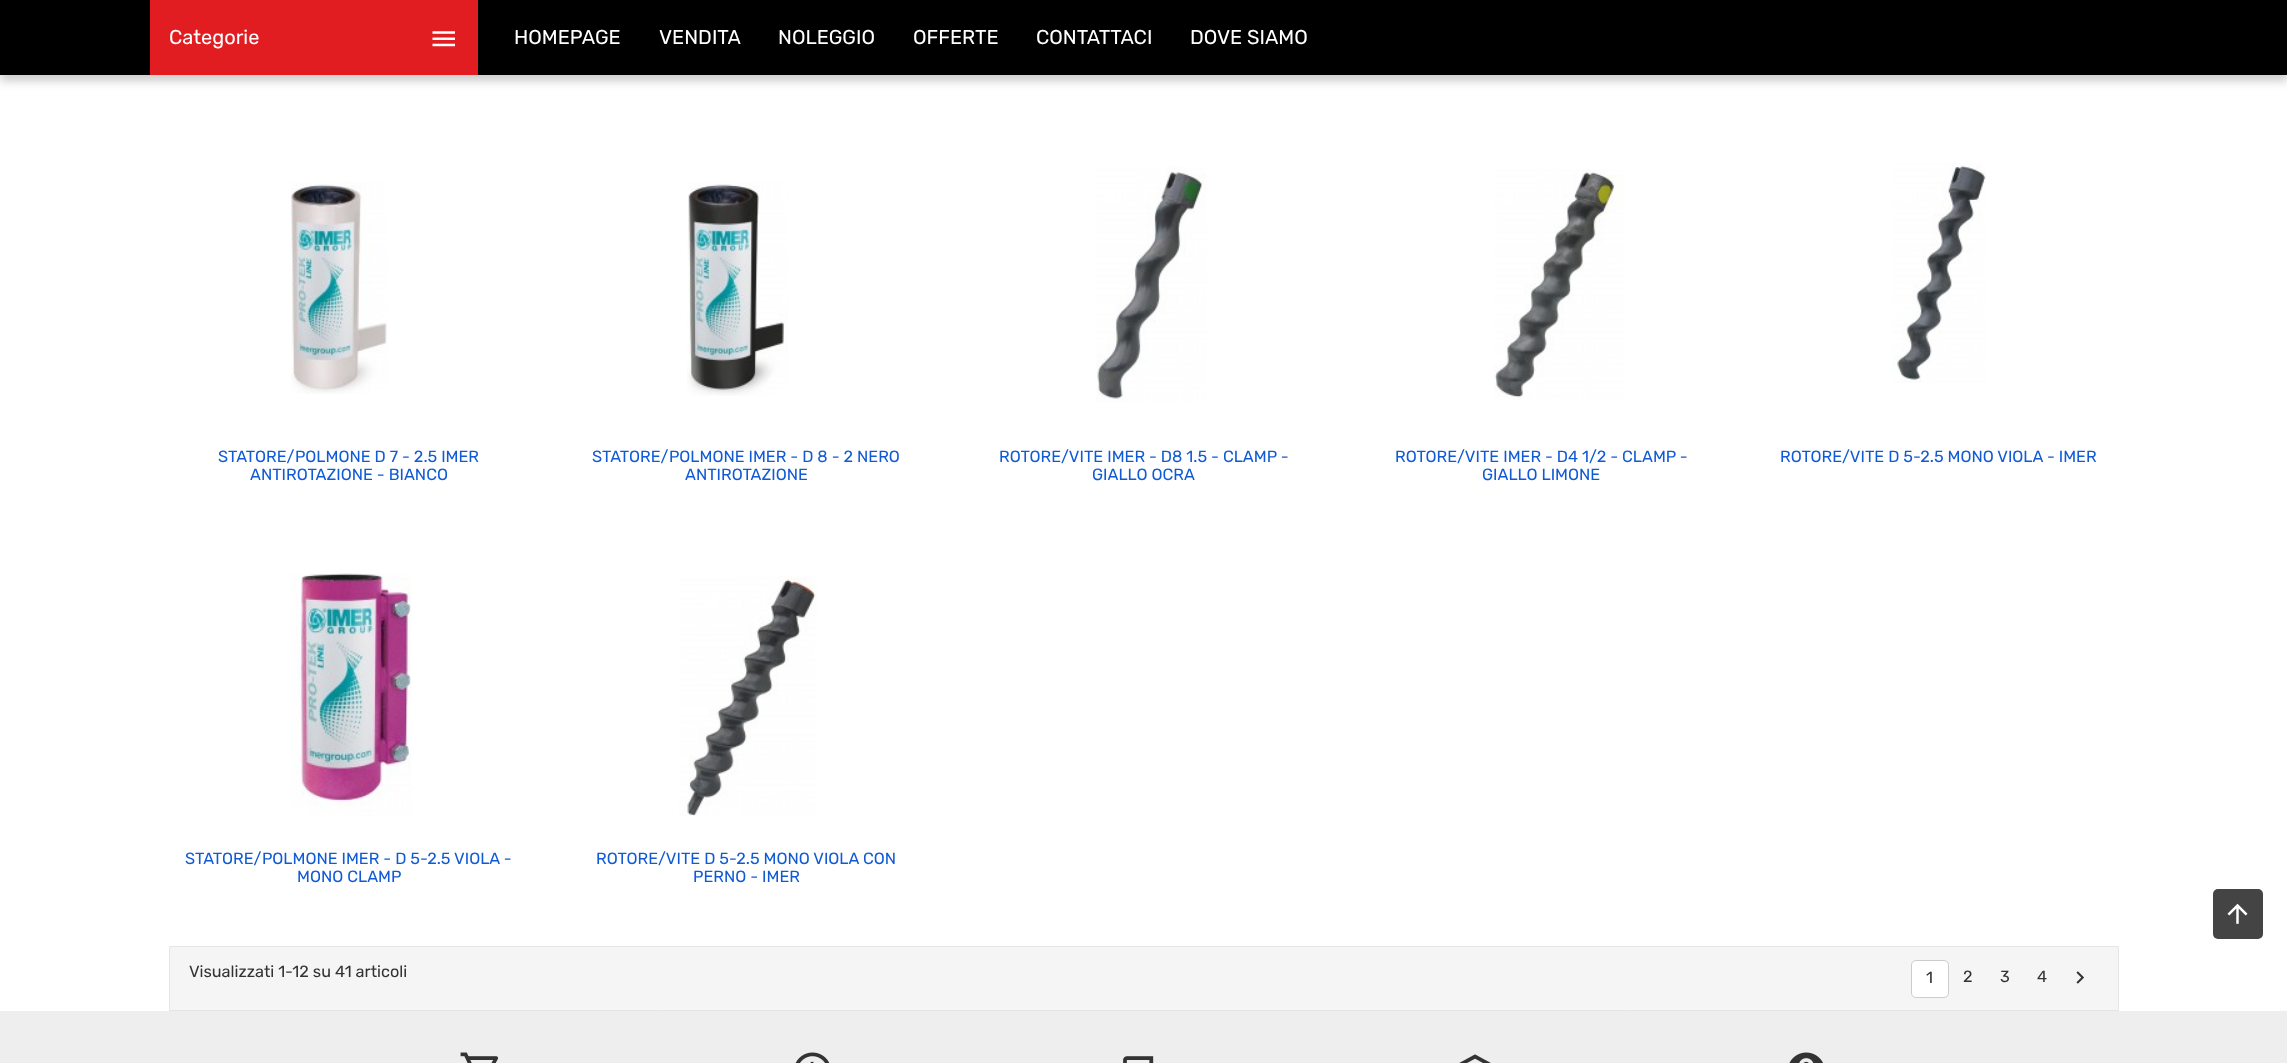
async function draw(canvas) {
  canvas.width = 2287
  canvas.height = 1063
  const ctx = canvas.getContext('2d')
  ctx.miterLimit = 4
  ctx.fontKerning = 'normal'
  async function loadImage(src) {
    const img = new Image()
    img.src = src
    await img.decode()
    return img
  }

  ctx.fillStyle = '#fff'
  ctx.fillRect(0, 0, 2287, 1063)
  ctx.fillStyle = '#00000033'
  ctx.filter = 'blur(5px)'
  ctx.beginPath()
  ctx.rect(0, 6, 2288, 75)
  ctx.fill()
  ctx.filter = 'none'
  ctx.fillStyle = '#000'
  ctx.fillRect(0, 0, 2287, 75)
  ctx.fillStyle = '#e11d21'
  ctx.fillRect(150, 0, 328, 75)
  ctx.font = '20px Rubik'
  ctx.fillStyle = '#fff'
  ctx.fillText('Categorie', 169, 44)
  ctx.drawImage(await loadImage('image0.png'), 432, 31, 23, 16)
  ctx.fillText('HOMEPAGE', 514, 44)
  ctx.fillText('VENDITA', 659, 44)
  ctx.fillText('NOLEGGIO', 778, 44)
  ctx.fillText('OFFERTE', 913, 44)
  ctx.fillText('CONTATTACI', 1036, 44)
  ctx.fillText('DOVE SIAMO', 1190, 44)
  ctx.drawImage(await loadImage('image1.png'), 291, 182, 97, 212)
  ctx.font = '16.25px Rubik'
  ctx.fillStyle = '#105bd5'
  ctx.fillText('STATORE/POLMONE D 7 - 2.5 IMER', 218, 462)
  ctx.fillText('ANTIROTAZIONE - BIANCO', 250, 480)
  ctx.drawImage(await loadImage('image2.png'), 687, 182, 101, 214)
  ctx.fillText('STATORE/POLMONE IMER - D 8 - 2 NERO', 592, 462)
  ctx.fillText('ANTIROTAZIONE', 685, 480)
  ctx.drawImage(await loadImage('image3.png'), 1096, 166, 110, 236)
  ctx.fillText('ROTORE/VITE IMER - D8 1.5 - CLAMP -', 999, 462)
  ctx.fillText('GIALLO OCRA', 1092, 480)
  ctx.drawImage(await loadImage('image4.png'), 1494, 169, 130, 231)
  ctx.fillText('ROTORE/VITE IMER - D4 1/2 - CLAMP -', 1395, 462)
  ctx.fillText('GIALLO LIMONE', 1482, 480)
  ctx.drawImage(await loadImage('image5.png'), 1892, 163, 94, 220)
  ctx.fillText('ROTORE/VITE D 5-2.5 MONO VIOLA - IMER', 1780, 462)
  ctx.drawImage(await loadImage('image6.png'), 291, 573, 121, 243)
  ctx.fillText('STATORE/POLMONE IMER - D 5-2.5 VIOLA -', 185, 864)
  ctx.fillText('MONO CLAMP', 297, 882)
  ctx.drawImage(await loadImage('image7.png'), 679, 576, 138, 240)
  ctx.fillText('ROTORE/VITE D 5-2.5 MONO VIOLA CON', 596, 864)
  ctx.fillText('PERNO - IMER', 693, 882)
  ctx.fillStyle = '#f5f5f5'
  ctx.beginPath()
  ctx.rect(169.5, 946.5, 1949, 64)
  ctx.fill()
  ctx.strokeStyle = '#e5e5e5'
  ctx.stroke()
  ctx.fillStyle = '#333'
  ctx.fillText('Visualizzati 1-12 su 41 articoli', 189, 977)
  ctx.fillStyle = '#fff'
  ctx.beginPath()
  ctx.roundRect(1911.5, 960.5, 37, 37, 4.5)
  ctx.fill()
  ctx.strokeStyle = '#ccc'
  ctx.stroke()
  ctx.fillStyle = '#333'
  ctx.fillText('1', 1926, 983)
  ctx.fillText('2', 1963, 982)
  ctx.fillText('3', 2000, 982)
  ctx.fillText('4', 2037, 982)
  ctx.drawImage(await loadImage('image8.png'), 2076, 971, 9, 13)
  ctx.fillStyle = '#444'
  ctx.beginPath()
  ctx.roundRect(2213, 889, 50, 50, 5)
  ctx.fill()
  ctx.drawImage(await loadImage('image9.png'), 2227, 903, 21, 21)
  ctx.fillStyle = '#eee'
  ctx.fillRect(0, 1011, 2287, 52)
  ctx.drawImage(await loadImage('image10.png'), 460, 1052, 39, 11)
  ctx.drawImage(await loadImage('image11.png'), 795, 1052, 35, 11)
  ctx.drawImage(await loadImage('image12.png'), 1123, 1056, 31, 7)
  ctx.drawImage(await loadImage('image13.png'), 1459, 1054, 32, 9)
  ctx.drawImage(await loadImage('image14.png'), 1789, 1052, 34, 11)
}

draw(document.querySelector('canvas'))
